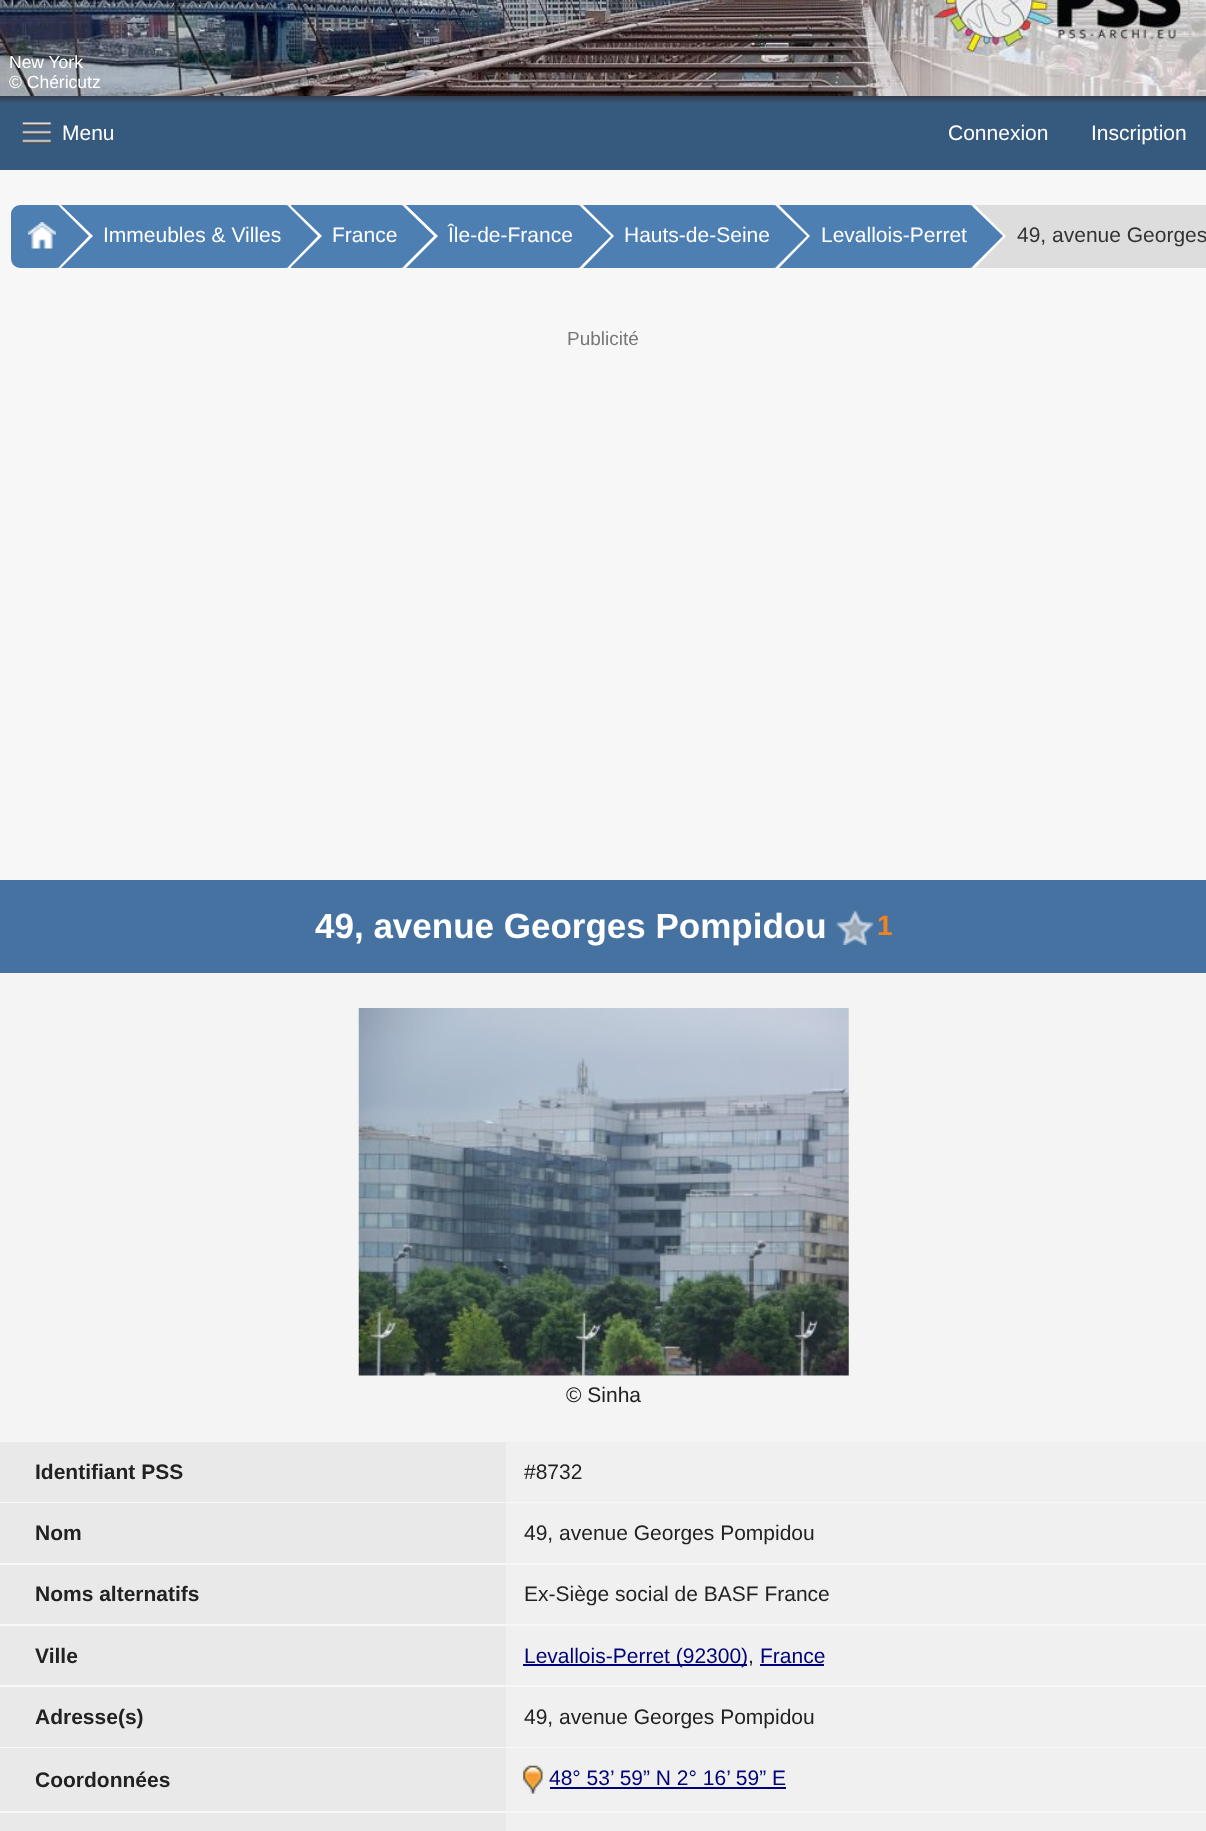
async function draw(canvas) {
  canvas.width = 1206
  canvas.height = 1831
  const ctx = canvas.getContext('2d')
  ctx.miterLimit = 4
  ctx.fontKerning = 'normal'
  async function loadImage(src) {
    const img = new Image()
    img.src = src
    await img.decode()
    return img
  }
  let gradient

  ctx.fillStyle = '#f7f7f7'
  ctx.fillRect(0, 0, 1206, 1831)
  ctx.drawImage(await loadImage('image0.png'), 0, 0, 1206, 96)
  ctx.font = '17.5px Liberation Sans'
  ctx.fillStyle = '#fff'
  ctx.fillText('New York', 9, 68)
  ctx.fillText('© Chéricutz', 9, 88)
  gradient = ctx.createLinearGradient(604, 96, 604, 170)
  gradient.addColorStop(0, '#323d4a')
  gradient.addColorStop(0.1, '#36597e')
  ctx.fillStyle = gradient
  ctx.fillRect(0, 96, 1206, 74)
  ctx.drawImage(await loadImage('image1.png'), 22, 122, 29, 22)
  ctx.font = '21px Liberation Sans'
  ctx.fillStyle = '#fff'
  ctx.fillText('Menu', 62, 140)
  ctx.fillText('Connexion', 948, 140)
  ctx.fillText('Inscription', 1091, 140)
  ctx.fillStyle = '#4e7fb3'
  ctx.beginPath()
  ctx.roundRect(11, 205, 49, 63, [9, 4, 4, 9])
  ctx.fill()
  ctx.drawImage(await loadImage('image2.png'), 28, 222, 28, 27)
  ctx.beginPath()
  ctx.roundRect(61, 205, 228, 63, [0, 4, 4, 0])
  ctx.fill()
  ctx.fillStyle = '#fff'
  ctx.beginPath()
  ctx.moveTo(61, 268)
  ctx.lineTo(61, 205)
  ctx.lineTo(93, 236)
  ctx.closePath()
  ctx.fill()
  ctx.fillStyle = '#4e7fb3'
  ctx.beginPath()
  ctx.moveTo(58, 268)
  ctx.lineTo(58, 205)
  ctx.lineTo(89, 236)
  ctx.closePath()
  ctx.fill()
  ctx.fillStyle = '#fff'
  ctx.fillText('Immeubles & Villes', 103, 242)
  ctx.fillStyle = '#4e7fb3'
  ctx.beginPath()
  ctx.roundRect(291, 205, 113, 63, [0, 4, 4, 0])
  ctx.fill()
  ctx.fillStyle = '#fff'
  ctx.beginPath()
  ctx.moveTo(290, 268)
  ctx.lineTo(290, 205)
  ctx.lineTo(322, 236)
  ctx.closePath()
  ctx.fill()
  ctx.fillStyle = '#4e7fb3'
  ctx.beginPath()
  ctx.moveTo(287, 268)
  ctx.lineTo(287, 205)
  ctx.lineTo(318, 236)
  ctx.closePath()
  ctx.fill()
  ctx.fillStyle = '#fff'
  ctx.fillText('France', 332, 242)
  ctx.fillStyle = '#4e7fb3'
  ctx.beginPath()
  ctx.roundRect(406, 205, 175, 63, [0, 4, 4, 0])
  ctx.fill()
  ctx.fillStyle = '#fff'
  ctx.beginPath()
  ctx.moveTo(406, 268)
  ctx.lineTo(406, 205)
  ctx.lineTo(438, 236)
  ctx.closePath()
  ctx.fill()
  ctx.fillStyle = '#4e7fb3'
  ctx.beginPath()
  ctx.moveTo(402, 268)
  ctx.lineTo(402, 205)
  ctx.lineTo(434, 236)
  ctx.closePath()
  ctx.fill()
  ctx.fillStyle = '#fff'
  ctx.fillText('Île-de-France', 448, 242)
  ctx.fillStyle = '#4e7fb3'
  ctx.beginPath()
  ctx.roundRect(583, 205, 194, 63, [0, 4, 4, 0])
  ctx.fill()
  ctx.fillStyle = '#fff'
  ctx.beginPath()
  ctx.moveTo(583, 268)
  ctx.lineTo(583, 205)
  ctx.lineTo(614, 236)
  ctx.closePath()
  ctx.fill()
  ctx.fillStyle = '#4e7fb3'
  ctx.beginPath()
  ctx.moveTo(579, 268)
  ctx.lineTo(579, 205)
  ctx.lineTo(611, 236)
  ctx.closePath()
  ctx.fill()
  ctx.fillStyle = '#fff'
  ctx.fillText('Hauts-de-Seine', 624, 242)
  ctx.fillStyle = '#4e7fb3'
  ctx.beginPath()
  ctx.roundRect(779, 205, 194, 63, [0, 4, 4, 0])
  ctx.fill()
  ctx.fillStyle = '#fff'
  ctx.beginPath()
  ctx.moveTo(779, 268)
  ctx.lineTo(779, 205)
  ctx.lineTo(810, 236)
  ctx.closePath()
  ctx.fill()
  ctx.fillStyle = '#4e7fb3'
  ctx.beginPath()
  ctx.moveTo(775, 268)
  ctx.lineTo(775, 205)
  ctx.lineTo(807, 236)
  ctx.closePath()
  ctx.fill()
  ctx.fillStyle = '#fff'
  ctx.fillText('Levallois-Perret', 821, 242)
  ctx.fillStyle = '#ddd'
  ctx.fillRect(975, 205, 231, 63)
  ctx.fillStyle = '#fff'
  ctx.beginPath()
  ctx.moveTo(975, 268)
  ctx.lineTo(975, 205)
  ctx.lineTo(1006, 236)
  ctx.closePath()
  ctx.fill()
  ctx.fillStyle = '#4e7fb3'
  ctx.beginPath()
  ctx.moveTo(971, 268)
  ctx.lineTo(971, 205)
  ctx.lineTo(1003, 236)
  ctx.closePath()
  ctx.fill()
  ctx.fillStyle = '#333'
  ctx.fillText('49, avenue Georges', 1017, 242)
  ctx.font = '19px Liberation Sans'
  ctx.fillStyle = '#777'
  ctx.fillText('Publicité', 567, 345)
  ctx.fillStyle = '#4672a1'
  ctx.fillRect(0, 880, 1206, 93)
  ctx.font = 'bold 35px Liberation Sans'
  ctx.fillStyle = '#fff'
  ctx.fillText('49, avenue Georges Pompidou', 315, 938)
  ctx.drawImage(await loadImage('image3.png'), 836, 910, 38, 35)
  ctx.font = 'bold 28px Liberation Sans'
  ctx.fillStyle = '#f58220'
  ctx.fillText('1', 877, 935)
  ctx.fillStyle = '#f4f4f4'
  ctx.fillRect(0, 973, 1206, 469)
  ctx.drawImage(await loadImage('image4.png'), 358, 1008, 491, 368)
  ctx.font = '21px Liberation Sans'
  ctx.fillStyle = '#222'
  ctx.fillText('© Sinha', 566, 1402)
  ctx.fillStyle = '#e9e9e9'
  ctx.fillRect(0, 1442, 506, 60)
  ctx.font = 'bold 21px Liberation Sans'
  ctx.fillStyle = '#222'
  ctx.fillText('Identifiant PSS', 35, 1479)
  ctx.fillStyle = '#f0f0f0'
  ctx.fillRect(506, 1442, 700, 60)
  ctx.font = '21px Liberation Sans'
  ctx.fillStyle = '#222'
  ctx.fillText('#8732', 524, 1479)
  ctx.fillStyle = '#e9e9e9'
  ctx.fillRect(0, 1503, 506, 60)
  ctx.font = 'bold 21px Liberation Sans'
  ctx.fillStyle = '#222'
  ctx.fillText('Nom', 35, 1540)
  ctx.fillStyle = '#f0f0f0'
  ctx.fillRect(506, 1503, 700, 60)
  ctx.font = '21px Liberation Sans'
  ctx.fillStyle = '#222'
  ctx.fillText('49, avenue Georges Pompidou', 524, 1540)
  ctx.fillStyle = '#e9e9e9'
  ctx.fillRect(0, 1565, 506, 59)
  ctx.font = 'bold 21px Liberation Sans'
  ctx.fillStyle = '#222'
  ctx.fillText('Noms alternatifs', 35, 1601)
  ctx.fillStyle = '#f0f0f0'
  ctx.fillRect(506, 1565, 700, 59)
  ctx.font = '21px Liberation Sans'
  ctx.fillStyle = '#222'
  ctx.fillText('Ex-Siège social de BASF France', 524, 1601)
  ctx.fillStyle = '#e9e9e9'
  ctx.fillRect(0, 1626, 506, 59)
  ctx.font = 'bold 21px Liberation Sans'
  ctx.fillStyle = '#222'
  ctx.fillText('Ville', 35, 1663)
  ctx.fillStyle = '#f0f0f0'
  ctx.fillRect(506, 1626, 700, 59)
  ctx.fillStyle = '#007'
  ctx.fillRect(523, 1664, 224, 2)
  ctx.font = '21px Liberation Sans'
  ctx.fillText('Levallois-Perret (92300)', 524, 1663)
  ctx.fillStyle = '#222'
  ctx.fillText(',', 748, 1663)
  ctx.fillStyle = '#007'
  ctx.fillText('France', 760, 1663)
  ctx.fillRect(760, 1664, 64, 2)
  ctx.fillStyle = '#e9e9e9'
  ctx.fillRect(0, 1687, 506, 60)
  ctx.font = 'bold 21px Liberation Sans'
  ctx.fillStyle = '#222'
  ctx.fillText('Adresse(s)', 35, 1724)
  ctx.fillStyle = '#f0f0f0'
  ctx.fillRect(506, 1687, 700, 60)
  ctx.font = '21px Liberation Sans'
  ctx.fillStyle = '#222'
  ctx.fillText('49, avenue Georges Pompidou', 524, 1724)
  ctx.fillStyle = '#e9e9e9'
  ctx.fillRect(0, 1748, 506, 63)
  ctx.font = 'bold 21px Liberation Sans'
  ctx.fillStyle = '#222'
  ctx.fillText('Coordonnées', 35, 1787)
  ctx.fillStyle = '#f0f0f0'
  ctx.fillRect(506, 1748, 700, 63)
  ctx.drawImage(await loadImage('image5.png'), 523, 1765, 20, 29)
  ctx.font = '21px Liberation Sans'
  ctx.fillStyle = '#007'
  ctx.fillText('48° 53’ 59” N 2° 16’ 59” E', 549, 1785)
  ctx.fillRect(550, 1787, 236, 2)
  ctx.fillStyle = '#e9e9e9'
  ctx.fillRect(0, 1813, 506, 18)
  ctx.fillStyle = '#f0f0f0'
  ctx.fillRect(506, 1813, 700, 18)
}

draw(document.querySelector('canvas'))
